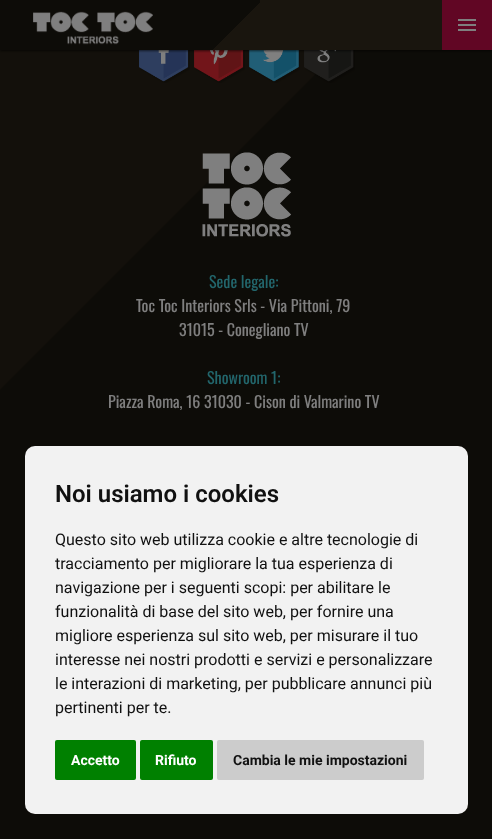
async function draw(canvas) {
  canvas.width = 492
  canvas.height = 839
  const ctx = canvas.getContext('2d')
  ctx.miterLimit = 4
  ctx.fontKerning = 'normal'
  async function loadImage(src) {
    const img = new Image()
    img.src = src
    await img.decode()
    return img
  }

  ctx.fillStyle = '#272116'
  ctx.fillRect(0, 0, 492, 839)
  ctx.drawImage(await loadImage('image2.png'), 0, 50, 492, 789)
  ctx.drawImage(await loadImage('image3.png'), 139, 50, 51, 33)
  ctx.drawImage(await loadImage('image4.png'), 194, 50, 51, 33)
  ctx.drawImage(await loadImage('image5.png'), 249, 50, 51, 33)
  ctx.drawImage(await loadImage('image6.png'), 304, 50, 51, 33)
  ctx.fillStyle = '#00000099'
  ctx.filter = 'blur(1px)'
  ctx.beginPath()
  ctx.rect(0, 1, 492, 50)
  ctx.fill()
  ctx.filter = 'none'
  ctx.fillStyle = '#322a1d'
  ctx.fillRect(213, 0, 229, 50)
  ctx.drawImage(await loadImage('image0.png'), 0, 0, 260, 50)
  ctx.drawImage(await loadImage('image1.png'), 33, 11, 120, 34)
  ctx.fillStyle = '#c30d49'
  ctx.fillRect(442, 0, 50, 50)
  ctx.fillStyle = '#fff'
  ctx.fillRect(458, 24, 18, 2)
  ctx.fillRect(458, 19, 18, 2)
  ctx.fillRect(458, 29, 18, 2)
  ctx.drawImage(await loadImage('image7.png'), 202, 152, 89, 85)
  ctx.font = '16px Oswald'
  ctx.fillStyle = '#44cdd9'
  ctx.fillText('Sede legale:', 209, 288)
  ctx.fillStyle = '#fff'
  ctx.fillText('Toc Toc Interiors Srls - Via Pittoni, 79', 136, 312)
  ctx.fillText('31015 - Conegliano TV', 179, 336)
  ctx.fillStyle = '#44cdd9'
  ctx.fillText('Showroom 1:', 207, 384)
  ctx.fillStyle = '#fff'
  ctx.fillText('Piazza Roma, 16 31030 - Cison di Valmarino TV', 108, 408)
  ctx.beginPath()
  ctx.roundRect(-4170, -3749, 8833, 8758, 4205)
  ctx.strokeStyle = '#00000080'
  ctx.lineWidth = 8390
  ctx.stroke()
  ctx.fillStyle = '#f2f2f2'
  ctx.beginPath()
  ctx.roundRect(25, 446, 443, 368, 10)
  ctx.fill()
  ctx.font = '600 24px Roboto'
  ctx.fillStyle = '#111'
  ctx.fillText('Noi usiamo i cookies', 55, 502)
  ctx.font = '16px Roboto'
  ctx.fillText('Questo sito web utilizza cookie e altre tecnologie di', 55, 545)
  ctx.fillText('tracciamento per migliorare la tua esperienza di', 55, 569)
  ctx.fillText('navigazione per i seguenti scopi: per abilitare le', 55, 593)
  ctx.fillText('funzionalità di base del sito web, per fornire una', 55, 617)
  ctx.fillText('migliore esperienza sul sito web, per misurare il tuo', 55, 641)
  ctx.fillText('interesse nei nostri prodotti e servizi e personalizzare', 55, 665)
  ctx.fillText('le interazioni di marketing, per pubblicare annunci più', 55, 689)
  ctx.fillText('pertinenti per te.', 55, 713)
  ctx.fillStyle = '#008000'
  ctx.beginPath()
  ctx.roundRect(55, 740, 81, 40, 2)
  ctx.fill()
  ctx.font = 'bold 14px Roboto'
  ctx.fillStyle = '#fff'
  ctx.fillText('Accetto', 71, 765)
  ctx.fillStyle = '#008000'
  ctx.beginPath()
  ctx.roundRect(140, 740, 73, 40, 2)
  ctx.fill()
  ctx.fillStyle = '#fff'
  ctx.fillText('Rifiuto', 155, 765)
  ctx.fillStyle = '#ccc'
  ctx.beginPath()
  ctx.roundRect(217, 740, 207, 40, 2)
  ctx.fill()
  ctx.fillStyle = '#111'
  ctx.fillText('Cambia le mie impostazioni', 233, 765)
}

draw(document.querySelector('canvas'))
